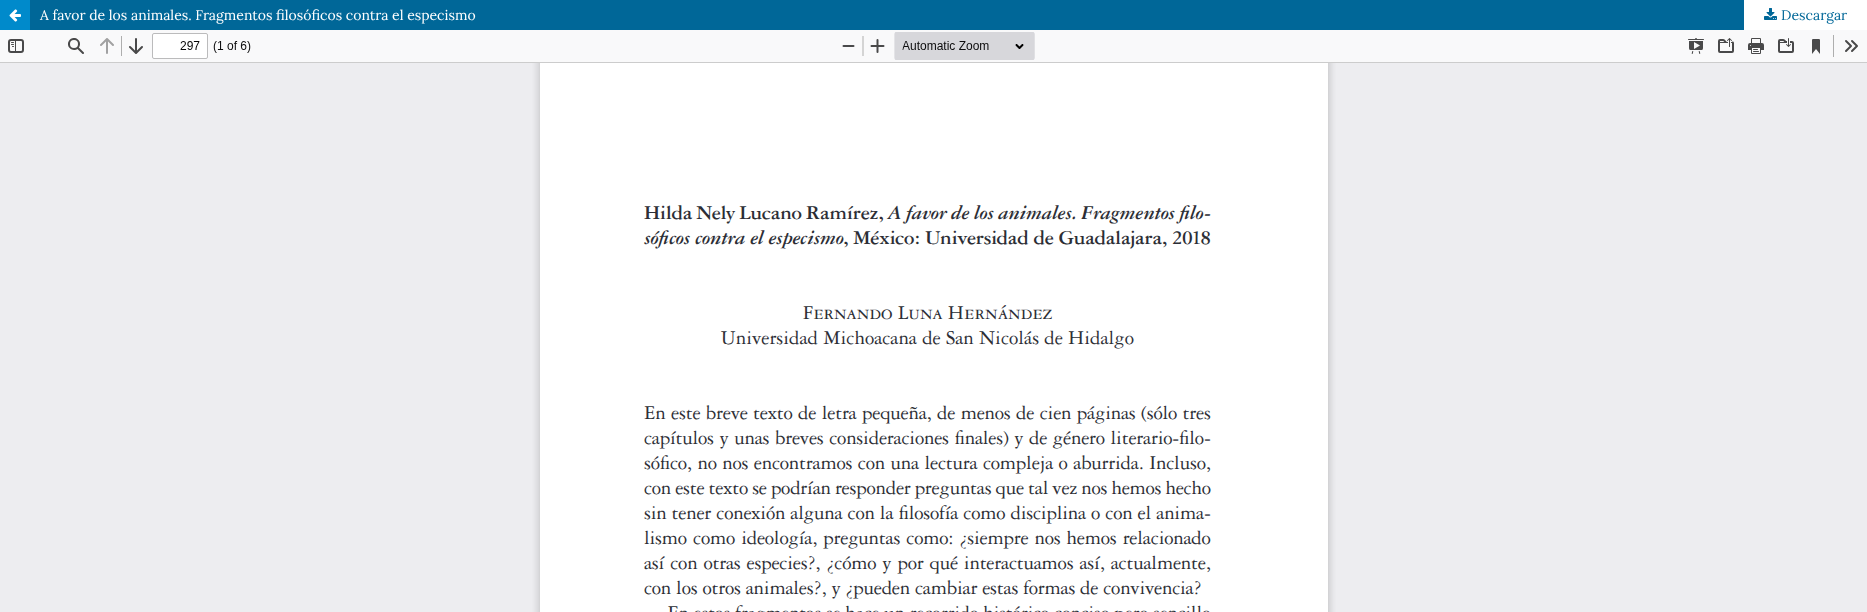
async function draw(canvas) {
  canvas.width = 1867
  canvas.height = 612
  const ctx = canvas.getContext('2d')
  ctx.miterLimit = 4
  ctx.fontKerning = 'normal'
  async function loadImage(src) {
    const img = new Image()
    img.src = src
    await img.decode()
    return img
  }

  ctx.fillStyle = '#fff'
  ctx.fillRect(0, 0, 1867, 612)
  ctx.fillStyle = '#006798'
  ctx.fillRect(30, 0, 1714, 30)
  ctx.fillStyle = '#008acb'
  ctx.fillRect(0, 0, 30, 30)
  ctx.drawImage(await loadImage('image0.png'), 9, 9, 12, 13)
  ctx.font = '14px Lora'
  ctx.fillStyle = '#fff'
  ctx.fillText('A favor de los animales. Fragmentos filosóficos contra el especismo', 40, 20)
  ctx.drawImage(await loadImage('image1.png'), 1764, 8, 13, 12)
  ctx.fillStyle = '#006798'
  ctx.fillText('Descargar', 1781, 20)
  ctx.drawImage(await loadImage('image2.png'), 0, 30, 1867, 582)
}

draw(document.querySelector('canvas'))
